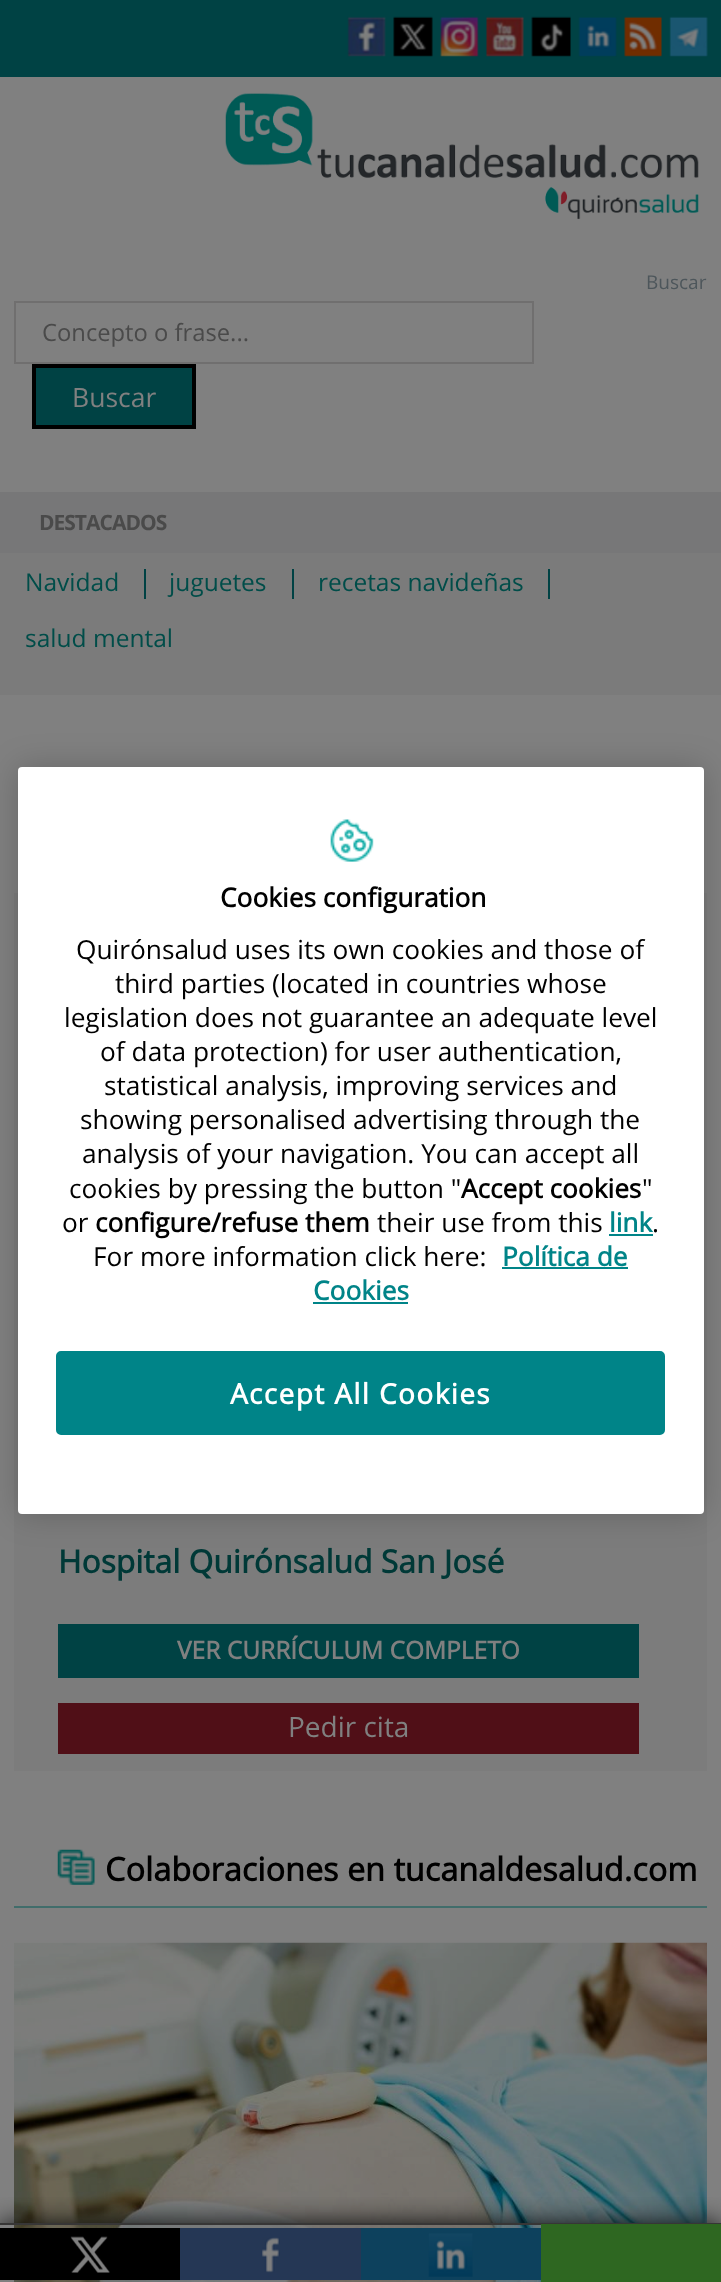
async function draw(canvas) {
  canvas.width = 721
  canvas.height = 2282
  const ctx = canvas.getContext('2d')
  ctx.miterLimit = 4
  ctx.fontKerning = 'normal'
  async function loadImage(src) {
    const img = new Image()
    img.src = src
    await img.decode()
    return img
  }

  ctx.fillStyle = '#808080'
  ctx.fillRect(0, 0, 721, 2282)
  ctx.fillStyle = '#004244'
  ctx.fillRect(0, 0, 721, 77)
  ctx.drawImage(await loadImage('image0.png'), 225, 93, 474, 127)
  ctx.drawImage(await loadImage('image1.png'), 347, 16, 39, 41)
  ctx.drawImage(await loadImage('image2.png'), 393, 16, 40, 41)
  ctx.drawImage(await loadImage('image3.png'), 440, 16, 39, 41)
  ctx.drawImage(await loadImage('image4.png'), 486, 16, 38, 41)
  ctx.drawImage(await loadImage('image5.png'), 531, 16, 40, 41)
  ctx.drawImage(await loadImage('image6.png'), 578, 17, 39, 40)
  ctx.drawImage(await loadImage('image7.png'), 624, 16, 38, 41)
  ctx.drawImage(await loadImage('image8.png'), 669, 16, 39, 41)
  ctx.font = '19px Open Sans'
  ctx.fillStyle = '#4d565b'
  ctx.fillText('Buscar', 646, 289)
  ctx.strokeStyle = '#706f6f'
  ctx.lineWidth = 2
  ctx.strokeRect(15, 302, 518, 61)
  ctx.font = '23.75px Open Sans'
  ctx.fillStyle = '#4a4a4a'
  ctx.fillText('Concepto o frase...', 42, 341)
  ctx.fillStyle = '#004244'
  ctx.beginPath()
  ctx.rect(34, 366, 160, 61)
  ctx.fill()
  ctx.strokeStyle = '#000'
  ctx.lineWidth = 4
  ctx.stroke()
  ctx.font = '26.5px Open Sans'
  ctx.fillStyle = '#808080'
  ctx.fillText('Buscar', 72, 407)
  ctx.fillStyle = '#7b7b7b'
  ctx.fillRect(0, 553, 721, 142)
  ctx.fillStyle = '#777778'
  ctx.fillRect(0, 492, 721, 61)
  ctx.letterSpacing = '-1px'
  ctx.font = 'bold 21px "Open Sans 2"'
  ctx.fillStyle = '#4a4a4a'
  ctx.fillText('DESTACADOS', 39, 530)
  ctx.fillStyle = '#004244'
  ctx.fillRect(144, 569, 2, 30)
  ctx.letterSpacing = '0px'
  ctx.font = '24.5px Open Sans'
  ctx.fillStyle = '#004d49'
  ctx.fillText('Navidad', 25, 591)
  ctx.fillStyle = '#004244'
  ctx.fillRect(292, 569, 2, 30)
  ctx.fillStyle = '#004d49'
  ctx.fillText('juguetes', 169, 591)
  ctx.fillStyle = '#004244'
  ctx.fillRect(548, 569, 2, 30)
  ctx.fillStyle = '#004d49'
  ctx.fillText('recetas navideñas', 318, 591)
  ctx.fillText('salud mental', 25, 647)
  ctx.fillStyle = '#7c7c7c'
  ctx.fillRect(14, 893, 693, 878)
  ctx.font = 'bold 31.8px Open Sans'
  ctx.fillStyle = '#003937'
  ctx.fillText('Hospital Quirónsalud San José', 58, 1573)
  ctx.fillStyle = '#004244'
  ctx.fillRect(58, 1624, 581, 54)
  ctx.font = 'bold 24.5px Open Sans'
  ctx.fillStyle = '#808080'
  ctx.fillText('VER CURRÍCULUM COMPLETO', 177, 1659)
  ctx.fillStyle = '#500f17'
  ctx.fillRect(58, 1703, 581, 51)
  ctx.font = '28px Open Sans'
  ctx.fillStyle = '#808080'
  ctx.fillText('Pedir cita', 288, 1737)
  ctx.drawImage(await loadImage('image9.png'), 57, 1849, 38, 36)
  ctx.font = 'bold 32.4px Open Sans'
  ctx.fillStyle = '#000'
  ctx.fillText('Colaboraciones en tucanaldesalud.com', 105, 1881)
  ctx.fillStyle = '#416d6b'
  ctx.fillRect(14, 1906, 693, 2)
  ctx.drawImage(await loadImage('image10.png'), 14, 1942, 693, 340)
  ctx.save()
  ctx.beginPath()
  ctx.rect(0, 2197, 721, 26)
  ctx.clip()
  ctx.fillStyle = '#000000e0'
  ctx.filter = 'blur(13px)'
  ctx.beginPath()
  ctx.rect(0, 2223, 721, 59)
  ctx.fill()
  ctx.filter = 'none'
  ctx.restore()
  ctx.fillStyle = '#373636'
  ctx.fillRect(0, 2223, 721, 2)
  ctx.fillStyle = '#000'
  ctx.fillRect(0, 2228, 180, 52)
  ctx.drawImage(await loadImage('image11.png'), 70, 2236, 40, 37)
  ctx.fillStyle = '#253755'
  ctx.fillRect(180, 2228, 181, 52)
  ctx.drawImage(await loadImage('image12.png'), 262, 2237, 18, 36)
  ctx.fillStyle = '#0d415d'
  ctx.fillRect(361, 2228, 180, 52)
  ctx.drawImage(await loadImage('image13.png'), 428, 2233, 45, 44)
  ctx.fillStyle = '#2e6721'
  ctx.fillRect(541, 2224, 180, 58)
  ctx.fillStyle = '#00000033'
  ctx.filter = 'blur(16px)'
  ctx.beginPath()
  ctx.roundRect(18, 767, 686, 747, 4)
  ctx.fill()
  ctx.filter = 'none'
  ctx.fillStyle = '#fff'
  ctx.beginPath()
  ctx.roundRect(18, 767, 686, 747, 4)
  ctx.fill()
  ctx.drawImage(await loadImage('image14.png'), 330, 819, 44, 43)
  ctx.font = 'bold 26.25px Open Sans'
  ctx.fillStyle = '#000'
  ctx.fillText('Cookies configuration', 220, 907)
  ctx.font = '26.25px Open Sans'
  ctx.fillText('Quirónsalud uses its own cookies and those of', 76, 959)
  ctx.fillText('third parties (located in countries whose', 115, 993)
  ctx.fillText('legislation does not guarantee an adequate level', 64, 1027)
  ctx.fillText('of data protection) for user authentication,', 100, 1061)
  ctx.fillText('statistical analysis, improving services and', 104, 1095)
  ctx.fillText('showing personalised advertising through the', 80, 1129)
  ctx.fillText('analysis of your navigation. You can accept all', 82, 1163)
  ctx.fillText('cookies by pressing the button "', 69, 1198)
  ctx.font = 'bold 26.25px Open Sans'
  ctx.fillText('Accept cookies', 461, 1198)
  ctx.font = '26.25px Open Sans'
  ctx.fillText('"', 642, 1198)
  ctx.fillText('or', 62, 1232)
  ctx.font = 'bold 26.25px Open Sans'
  ctx.fillText('configure/refuse them', 95, 1232)
  ctx.font = '26.25px Open Sans'
  ctx.fillText('their use from this', 377, 1232)
  ctx.font = 'bold 26.25px Open Sans'
  ctx.fillStyle = '#008488'
  ctx.fillText('link', 609, 1232)
  ctx.fillRect(609, 1234, 44, 2)
  ctx.font = '26.25px Open Sans'
  ctx.fillStyle = '#000'
  ctx.fillText('.', 652, 1232)
  ctx.fillText('For more information click here:', 93, 1266)
  ctx.font = 'bold 26.25px Open Sans'
  ctx.fillStyle = '#008488'
  ctx.fillText('Política de', 502, 1266)
  ctx.fillRect(502, 1267, 126, 2)
  ctx.fillText('Cookies', 313, 1300)
  ctx.fillRect(313, 1302, 95, 2)
  ctx.beginPath()
  ctx.roundRect(57, 1352, 607, 82, 4)
  ctx.fill()
  ctx.strokeStyle = '#008488'
  ctx.lineWidth = 2
  ctx.stroke()
  ctx.letterSpacing = '1.4px'
  ctx.font = 'bold 28px Open Sans'
  ctx.fillStyle = '#fff'
  ctx.fillText('Accept All Cookies', 230, 1404)
}

draw(document.querySelector('canvas'))
